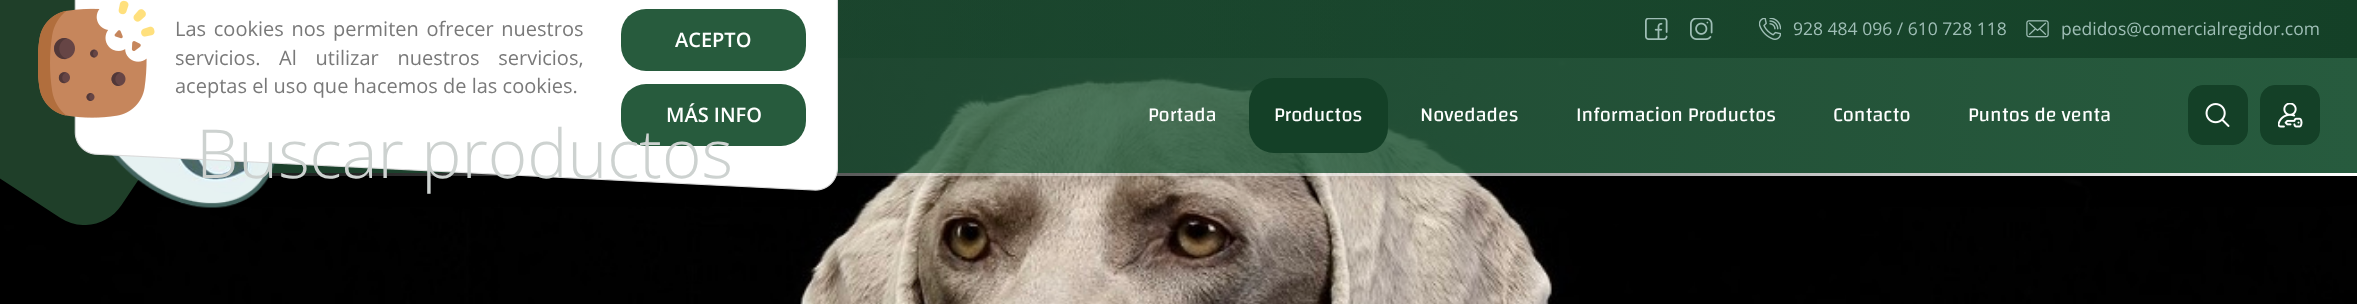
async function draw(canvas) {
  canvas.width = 2357
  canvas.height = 304
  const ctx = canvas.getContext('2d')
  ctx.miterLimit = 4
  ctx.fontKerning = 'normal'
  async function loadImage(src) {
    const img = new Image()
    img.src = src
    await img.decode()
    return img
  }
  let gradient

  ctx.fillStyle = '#fff'
  ctx.fillRect(0, 0, 2357, 304)
  ctx.drawImage(await loadImage('image0.png'), 0, 0, 2357, 304)
  ctx.save()
  ctx.beginPath()
  ctx.moveTo(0, 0)
  ctx.lineTo(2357, 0)
  ctx.lineTo(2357, 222)
  ctx.lineTo(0, 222)
  ctx.closePath()
  ctx.moveTo(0, 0)
  ctx.lineTo(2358, 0)
  ctx.lineTo(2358, 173)
  ctx.lineTo(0, 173)
  ctx.closePath()
  ctx.clip('evenodd')
  ctx.fillStyle = '#00000033'
  ctx.filter = 'blur(16px)'
  ctx.beginPath()
  ctx.rect(0, 0, 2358, 173)
  ctx.fill()
  ctx.filter = 'none'
  ctx.restore()
  gradient = ctx.createLinearGradient(0, 86, 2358, 86)
  gradient.addColorStop(0, '#275b3ea6')
  gradient.addColorStop(1, '#275b3e')
  ctx.fillStyle = gradient
  ctx.fillRect(269, 0, 2088, 173)
  ctx.drawImage(await loadImage('image2.png'), 0, 0, 157, 225)
  gradient = ctx.createLinearGradient(0, 174, 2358, 174)
  gradient.addColorStop(0, '#ffffff00')
  gradient.addColorStop(1, '#fff')
  ctx.fillStyle = gradient
  ctx.fillRect(268, 173, 2089, 3)
  ctx.drawImage(await loadImage('image9.png'), 110, 154, 166, 54)
  ctx.drawImage(await loadImage('image1.png'), 38, 0, 800, 191)
  ctx.wordSpacing = '2.5px'
  ctx.font = '20px Open Sans'
  ctx.fillStyle = '#797979'
  ctx.fillText('Las cookies nos permiten ofrecer nuestros', 175, 36)
  ctx.wordSpacing = '13.5px'
  ctx.fillText('servicios. Al utilizar nuestros servicios,', 175, 65)
  ctx.wordSpacing = '0px'
  ctx.fillText('aceptas el uso que hacemos de las cookies.', 175, 93)
  ctx.fillStyle = '#275b3d'
  ctx.beginPath()
  ctx.roundRect(621, 9, 185, 62, 25)
  ctx.fill()
  ctx.font = '600 20px Open Sans'
  ctx.fillStyle = '#fff'
  ctx.fillText('ACEPTO', 675, 47)
  ctx.fillStyle = '#275b3d'
  ctx.beginPath()
  ctx.roundRect(621, 84, 185, 62, 25)
  ctx.fill()
  ctx.fillStyle = '#fff'
  ctx.fillText('MÁS INFO', 666, 122)
  gradient = ctx.createLinearGradient(0, 29, 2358, 29)
  gradient.addColorStop(0, '#14402700')
  gradient.addColorStop(0.78, '#144027c7')
  gradient.addColorStop(1, '#144027')
  ctx.fillStyle = gradient
  ctx.fillRect(838, 0, 1519, 58)
  ctx.drawImage(await loadImage('image3.png'), 1645, 18, 23, 22)
  ctx.drawImage(await loadImage('image4.png'), 1690, 18, 23, 22)
  ctx.drawImage(await loadImage('image5.png'), 1759, 18, 22, 22)
  ctx.font = '17.5px Open Sans'
  ctx.fillStyle = '#9fbeb6'
  ctx.fillText('928 484 096 / 610 728 118', 1793, 35)
  ctx.drawImage(await loadImage('image6.png'), 2026, 20, 23, 18)
  ctx.fillText('pedidos@comercialregidor.com', 2061, 35)
  ctx.font = '20px Changa'
  ctx.fillStyle = '#fff'
  ctx.fillText('Portada', 1148, 121)
  ctx.fillStyle = '#144027'
  ctx.beginPath()
  ctx.roundRect(1249, 78, 139, 75, 25)
  ctx.fill()
  ctx.fillStyle = '#fff'
  ctx.fillText('Productos', 1274, 121)
  ctx.fillText('Novedades', 1420, 121)
  ctx.fillText('Informacion Productos', 1576, 121)
  ctx.fillText('Contacto', 1833, 121)
  ctx.fillText('Puntos de venta', 1968, 121)
  ctx.fillStyle = '#144027'
  ctx.beginPath()
  ctx.roundRect(2188.5, 85.5, 59, 59, 14.5)
  ctx.fill()
  ctx.strokeStyle = '#144027'
  ctx.stroke()
  ctx.drawImage(await loadImage('image7.png'), 2205, 103, 25, 24)
  ctx.beginPath()
  ctx.roundRect(2260.5, 85.5, 59, 59, 14.5)
  ctx.fill()
  ctx.stroke()
  ctx.drawImage(await loadImage('image8.png'), 2278, 103, 25, 25)
  ctx.font = '300 67.5px Open Sans'
  ctx.fillStyle = '#cdd2d0'
  ctx.fillText('Buscar productos', 196, 178)
}

draw(document.querySelector('canvas'))
